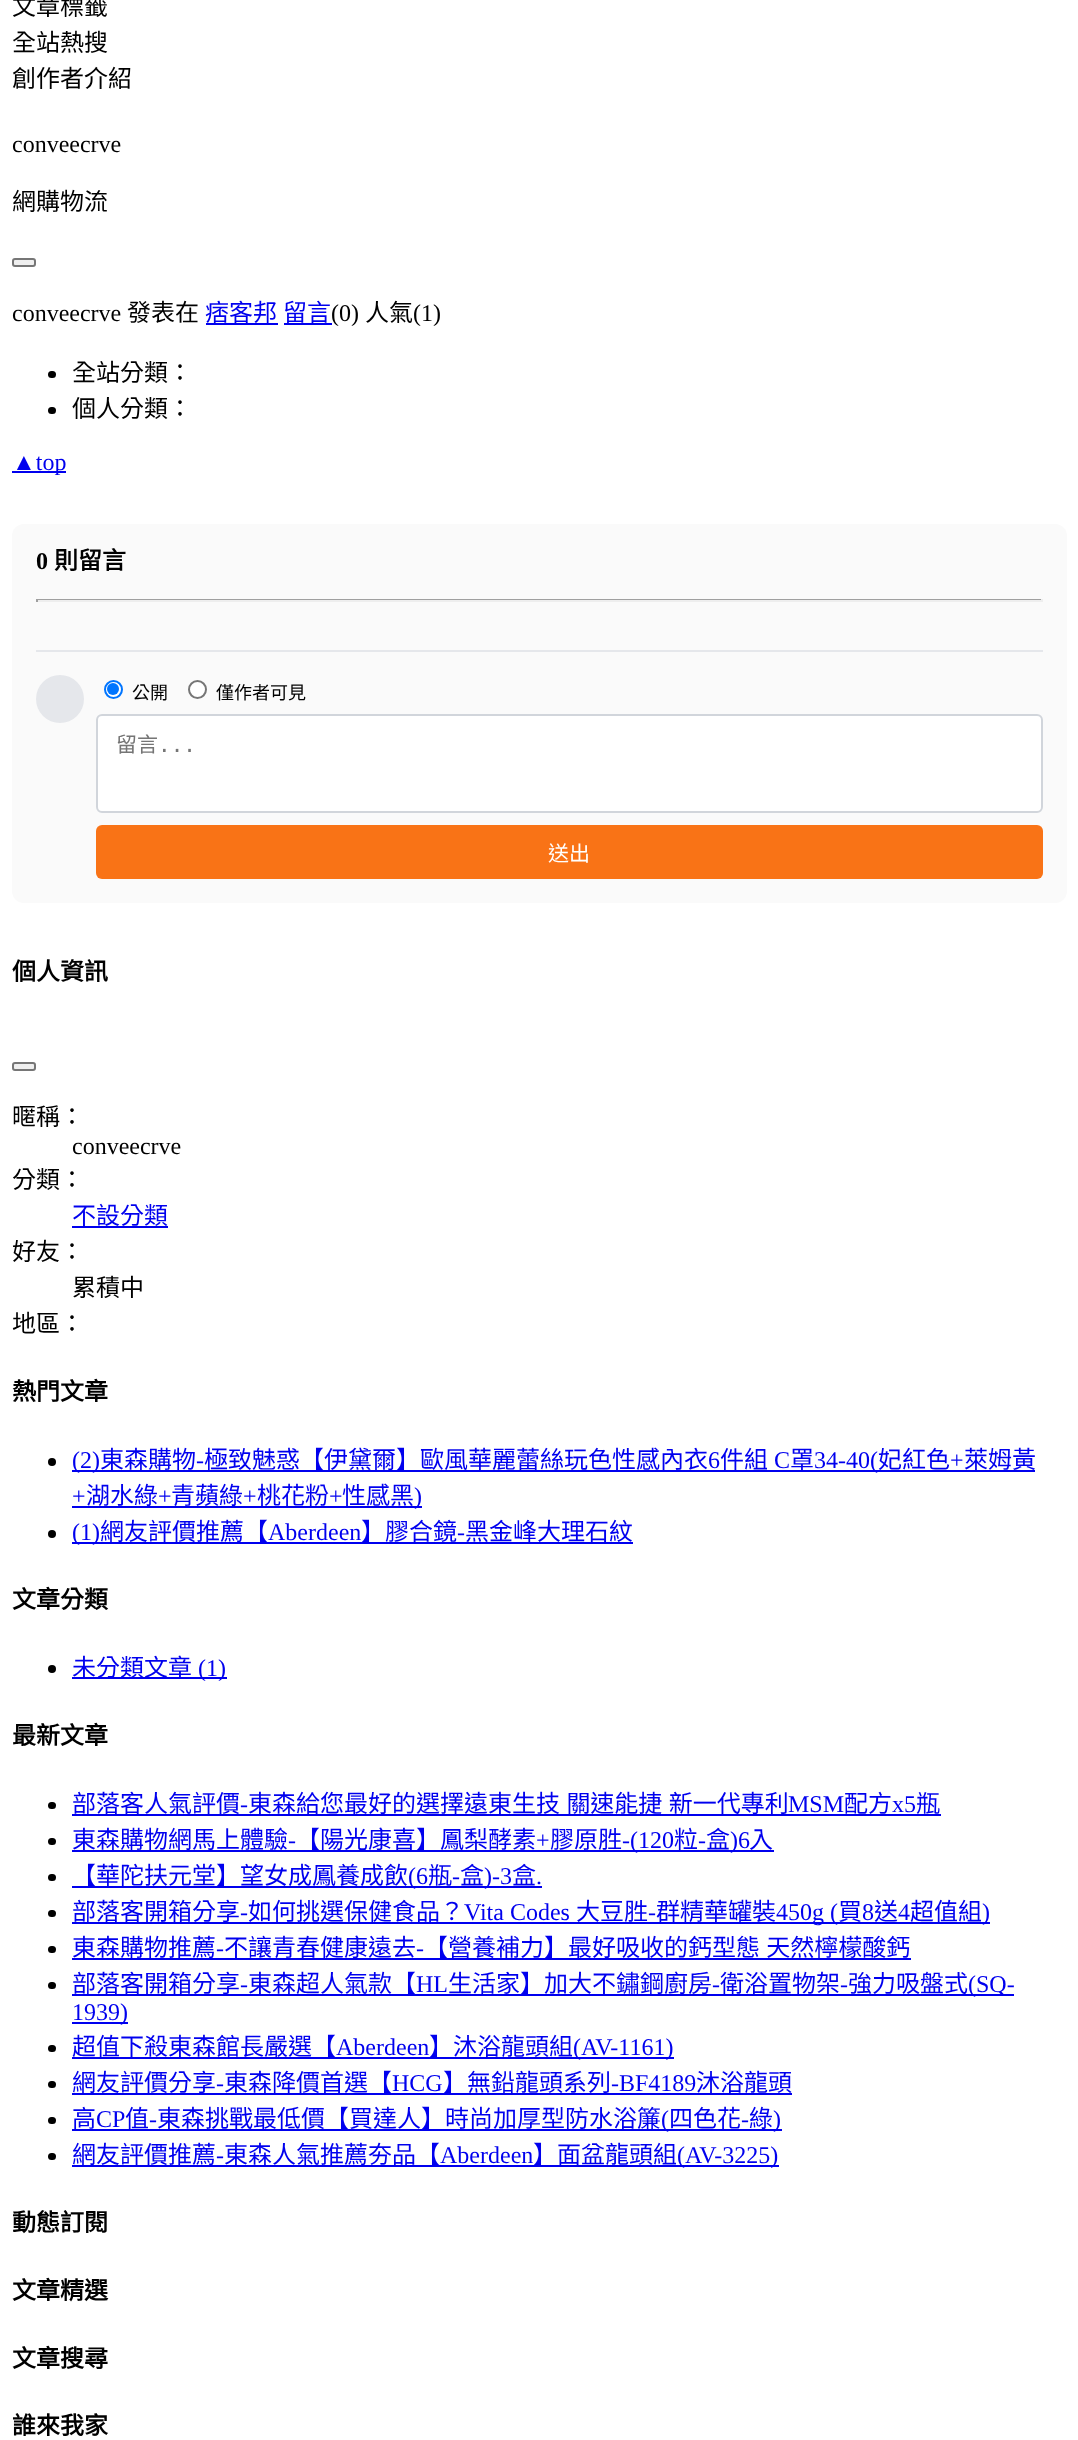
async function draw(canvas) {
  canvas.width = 1078
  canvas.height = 2440
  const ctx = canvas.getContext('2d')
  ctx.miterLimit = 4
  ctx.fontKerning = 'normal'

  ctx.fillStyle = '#fff'
  ctx.fillRect(0, 0, 1078, 2440)
  ctx.font = '24px Noto Sans CJK TC'
  ctx.fillStyle = '#000'
  ctx.fillText('文章標籤', 12, 15)
  ctx.fillText('全站熱搜', 12, 51)
  ctx.fillText('創作者介紹', 12, 87)
  ctx.font = '24px Liberation Serif'
  ctx.fillText('conveecrve', 12, 152)
  ctx.font = '24px Noto Sans CJK TC'
  ctx.fillText('網購物流', 12, 210)
  ctx.fillStyle = '#efefef'
  ctx.beginPath()
  ctx.roundRect(13, 259, 22, 7, 2)
  ctx.fill()
  ctx.strokeStyle = '#767676'
  ctx.lineWidth = 2
  ctx.stroke()
  ctx.font = '24px Liberation Serif'
  ctx.fillStyle = '#000'
  ctx.fillText('conveecrve', 12, 321)
  ctx.font = '24px Noto Sans CJK TC'
  ctx.fillText('發表在', 127, 321)
  ctx.fillStyle = '#00e'
  ctx.fillText('痞客邦', 205, 321)
  ctx.fillRect(206, 323, 72, 2)
  ctx.fillText('留言', 283, 321)
  ctx.fillRect(284, 323, 48, 2)
  ctx.font = '24px Liberation Serif'
  ctx.fillStyle = '#000'
  ctx.fillText('(0)', 331, 321)
  ctx.font = '24px Noto Sans CJK TC'
  ctx.fillText('人氣', 365, 321)
  ctx.font = '24px Liberation Serif'
  ctx.fillText('(1)', 413, 321)
  ctx.beginPath()
  ctx.roundRect(48, 371, 8, 7, 3.5)
  ctx.fill()
  ctx.font = '24px Noto Sans CJK TC'
  ctx.fillText('全站分類：', 72, 381)
  ctx.beginPath()
  ctx.roundRect(48, 407, 8, 7, 3.5)
  ctx.fill()
  ctx.fillText('個人分類：', 72, 417)
  ctx.fillStyle = '#00e'
  ctx.fillRect(12, 471, 54, 2)
  ctx.font = '24px Liberation Serif'
  ctx.fillText('▲top', 12, 470)
  ctx.fillStyle = '#fafafa'
  ctx.beginPath()
  ctx.roundRect(12, 524, 1055, 379, 12)
  ctx.fill()
  ctx.font = 'bold 24px Liberation Serif'
  ctx.fillStyle = '#000'
  ctx.fillText('0', 36, 569)
  ctx.font = 'bold 24px Noto Sans CJK TC'
  ctx.fillText('則留言', 54, 569)
  ctx.fillStyle = '#9f9f9f'
  ctx.fillRect(36, 599, 1007, 1)
  ctx.fillStyle = '#eee'
  ctx.fillRect(1041, 599, 2, 3)
  ctx.fillRect(36, 600, 1007, 2)
  ctx.fillStyle = '#9f9f9f'
  ctx.fillRect(36, 599, 2, 3)
  ctx.fillStyle = '#e5e7eb'
  ctx.fillRect(36, 650, 1007, 2)
  ctx.beginPath()
  ctx.arc(60, 699, 24, 0, 2 * Math.PI)
  ctx.fill()
  ctx.fillStyle = '#fff'
  ctx.beginPath()
  ctx.arc(113.5, 689.5, 8.5, 0, 2 * Math.PI)
  ctx.fill()
  ctx.strokeStyle = '#0075ff'
  ctx.stroke()
  ctx.fillStyle = '#0075ff'
  ctx.beginPath()
  ctx.arc(113, 689, 6, 0, 2 * Math.PI)
  ctx.fill()
  ctx.font = '18px Noto Sans CJK TC'
  ctx.fillStyle = '#000'
  ctx.fillText('公開', 132, 699)
  ctx.fillStyle = '#fff'
  ctx.beginPath()
  ctx.arc(197.5, 689.5, 8.5, 0, 2 * Math.PI)
  ctx.fill()
  ctx.strokeStyle = '#767676'
  ctx.stroke()
  ctx.fillStyle = '#000'
  ctx.fillText('僅作者可見', 216, 699)
  ctx.fillStyle = '#fff'
  ctx.beginPath()
  ctx.roundRect(97, 715, 945, 97, 5)
  ctx.fill()
  ctx.strokeStyle = '#d1d5db'
  ctx.stroke()
  ctx.font = '21px Noto Sans CJK TC'
  ctx.fillStyle = '#757575'
  ctx.fillText('留言', 116, 752)
  ctx.font = '21px DejaVu Sans Mono'
  ctx.fillText('...', 158, 752)
  ctx.fillStyle = '#f97316'
  ctx.beginPath()
  ctx.roundRect(96, 825, 947, 54, 6)
  ctx.fill()
  ctx.font = '21px Noto Sans CJK TC'
  ctx.fillStyle = '#fff'
  ctx.fillText('送出', 548, 861)
  ctx.font = 'bold 24px Noto Sans CJK TC'
  ctx.fillStyle = '#000'
  ctx.fillText('個人資訊', 12, 980)
  ctx.fillStyle = '#efefef'
  ctx.beginPath()
  ctx.roundRect(13, 1063, 22, 7, 2)
  ctx.fill()
  ctx.strokeStyle = '#767676'
  ctx.stroke()
  ctx.font = '24px Noto Sans CJK TC'
  ctx.fillStyle = '#000'
  ctx.fillText('暱稱：', 12, 1125)
  ctx.font = '24px Liberation Serif'
  ctx.fillText('conveecrve', 72, 1154)
  ctx.font = '24px Noto Sans CJK TC'
  ctx.fillText('分類：', 12, 1188)
  ctx.fillStyle = '#00e'
  ctx.fillText('不設分類', 72, 1224)
  ctx.fillRect(72, 1226, 96, 2)
  ctx.fillStyle = '#000'
  ctx.fillText('好友：', 12, 1260)
  ctx.fillText('累積中', 72, 1296)
  ctx.fillText('地區：', 12, 1332)
  ctx.font = 'bold 24px Noto Sans CJK TC'
  ctx.fillText('熱門文章', 12, 1400)
  ctx.beginPath()
  ctx.arc(52, 1462, 4, 0, 2 * Math.PI)
  ctx.fill()
  ctx.fillStyle = '#00e'
  ctx.fillRect(72, 1470, 963, 2)
  ctx.font = '24px Liberation Serif'
  ctx.fillText('(2)', 72, 1468)
  ctx.font = '24px Noto Sans CJK TC'
  ctx.fillText('東森購物', 100, 1468)
  ctx.font = '24px Liberation Serif'
  ctx.fillText('-', 196, 1468)
  ctx.font = '24px Noto Sans CJK TC'
  ctx.fillText('極致魅惑【伊黛爾】歐風華麗蕾絲玩色性感內衣', 204, 1468)
  ctx.font = '24px Liberation Serif'
  ctx.fillText('6', 708, 1468)
  ctx.font = '24px Noto Sans CJK TC'
  ctx.fillText('件組', 720, 1468)
  ctx.font = '24px Liberation Serif'
  ctx.fillText('C', 774, 1468)
  ctx.font = '24px Noto Sans CJK TC'
  ctx.fillText('罩', 790, 1468)
  ctx.font = '24px Liberation Serif'
  ctx.fillText('34-40(', 814, 1468)
  ctx.font = '24px Noto Sans CJK TC'
  ctx.fillText('妃紅色', 878, 1468)
  ctx.font = '24px Liberation Serif'
  ctx.fillText('+', 950, 1468)
  ctx.font = '24px Noto Sans CJK TC'
  ctx.fillText('萊姆黃', 964, 1468)
  ctx.font = '24px Liberation Serif'
  ctx.fillText('+', 72, 1504)
  ctx.font = '24px Noto Sans CJK TC'
  ctx.fillText('湖水綠', 86, 1504)
  ctx.font = '24px Liberation Serif'
  ctx.fillText('+', 158, 1504)
  ctx.fillRect(72, 1506, 350, 2)
  ctx.font = '24px Noto Sans CJK TC'
  ctx.fillText('青蘋綠', 171, 1504)
  ctx.font = '24px Liberation Serif'
  ctx.fillText('+', 243, 1504)
  ctx.font = '24px Noto Sans CJK TC'
  ctx.fillText('桃花粉', 257, 1504)
  ctx.font = '24px Liberation Serif'
  ctx.fillText('+', 329, 1504)
  ctx.font = '24px Noto Sans CJK TC'
  ctx.fillText('性感黑', 342, 1504)
  ctx.font = '24px Liberation Serif'
  ctx.fillText(')', 414, 1504)
  ctx.fillStyle = '#000'
  ctx.beginPath()
  ctx.arc(52, 1534, 4, 0, 2 * Math.PI)
  ctx.fill()
  ctx.fillStyle = '#00e'
  ctx.fillRect(72, 1542, 561, 2)
  ctx.fillText('(1)', 72, 1540)
  ctx.font = '24px Noto Sans CJK TC'
  ctx.fillText('網友評價推薦【', 100, 1540)
  ctx.font = '24px Liberation Serif'
  ctx.fillText('Aberdeen', 268, 1540)
  ctx.font = '24px Noto Sans CJK TC'
  ctx.fillText('】膠合鏡', 361, 1540)
  ctx.font = '24px Liberation Serif'
  ctx.fillText('-', 457, 1540)
  ctx.font = '24px Noto Sans CJK TC'
  ctx.fillText('黑金峰大理石紋', 465, 1540)
  ctx.font = 'bold 24px Noto Sans CJK TC'
  ctx.fillStyle = '#000'
  ctx.fillText('文章分類', 12, 1608)
  ctx.beginPath()
  ctx.arc(52, 1669, 4, 0, 2 * Math.PI)
  ctx.fill()
  ctx.fillStyle = '#00e'
  ctx.fillRect(72, 1677, 155, 2)
  ctx.font = '24px Noto Sans CJK TC'
  ctx.fillText('未分類文章', 72, 1676)
  ctx.font = '24px Liberation Serif'
  ctx.fillText('(1)', 198, 1676)
  ctx.font = 'bold 24px Noto Sans CJK TC'
  ctx.fillStyle = '#000'
  ctx.fillText('最新文章', 12, 1744)
  ctx.beginPath()
  ctx.roundRect(48, 1802, 8, 7, 3.5)
  ctx.fill()
  ctx.font = '24px Noto Sans CJK TC'
  ctx.fillStyle = '#00e'
  ctx.fillText('部落客人氣評價', 72, 1812)
  ctx.font = '24px Liberation Serif'
  ctx.fillText('-', 240, 1812)
  ctx.fillRect(72, 1814, 869, 2)
  ctx.wordSpacing = '1px'
  ctx.font = '24px Noto Sans CJK TC'
  ctx.fillText('東森給您最好的選擇遠東生技 關速能捷 新一代專利', 248, 1812)
  ctx.wordSpacing = '0px'
  ctx.font = '24px Liberation Serif'
  ctx.fillText('MSM', 788, 1812)
  ctx.font = '24px Noto Sans CJK TC'
  ctx.fillText('配方', 844, 1812)
  ctx.font = '24px Liberation Serif'
  ctx.fillText('x5', 892, 1812)
  ctx.font = '24px Noto Sans CJK TC'
  ctx.fillText('瓶', 916, 1812)
  ctx.fillStyle = '#000'
  ctx.beginPath()
  ctx.roundRect(48, 1838, 8, 7, 3.5)
  ctx.fill()
  ctx.fillStyle = '#00e'
  ctx.fillText('東森購物網馬上體驗', 72, 1848)
  ctx.font = '24px Liberation Serif'
  ctx.fillText('-', 288, 1848)
  ctx.fillRect(72, 1850, 702, 2)
  ctx.font = '24px Noto Sans CJK TC'
  ctx.fillText('【陽光康喜】鳳梨酵素', 296, 1848)
  ctx.font = '24px Liberation Serif'
  ctx.fillText('+', 536, 1848)
  ctx.font = '24px Noto Sans CJK TC'
  ctx.fillText('膠原胜', 550, 1848)
  ctx.font = '24px Liberation Serif'
  ctx.fillText('-(120', 622, 1848)
  ctx.font = '24px Noto Sans CJK TC'
  ctx.fillText('粒', 674, 1848)
  ctx.font = '24px Liberation Serif'
  ctx.fillText('-', 698, 1848)
  ctx.font = '24px Noto Sans CJK TC'
  ctx.fillText('盒', 706, 1848)
  ctx.font = '24px Liberation Serif'
  ctx.fillText(')6', 730, 1848)
  ctx.font = '24px Noto Sans CJK TC'
  ctx.fillText('入', 749, 1848)
  ctx.fillStyle = '#000'
  ctx.beginPath()
  ctx.roundRect(48, 1874, 8, 7, 3.5)
  ctx.fill()
  ctx.fillStyle = '#00e'
  ctx.fillRect(72, 1886, 470, 2)
  ctx.fillText('【華陀扶元堂】望女成鳳養成飲', 72, 1884)
  ctx.font = '24px Liberation Serif'
  ctx.fillText('(6', 408, 1884)
  ctx.font = '24px Noto Sans CJK TC'
  ctx.fillText('瓶', 428, 1884)
  ctx.font = '24px Liberation Serif'
  ctx.fillText('-', 452, 1884)
  ctx.font = '24px Noto Sans CJK TC'
  ctx.fillText('盒', 460, 1884)
  ctx.font = '24px Liberation Serif'
  ctx.fillText(')-3', 484, 1884)
  ctx.font = '24px Noto Sans CJK TC'
  ctx.fillText('盒', 512, 1884)
  ctx.font = '24px Liberation Serif'
  ctx.fillText('.', 536, 1884)
  ctx.fillStyle = '#000'
  ctx.beginPath()
  ctx.roundRect(48, 1910, 8, 7, 3.5)
  ctx.fill()
  ctx.font = '24px Noto Sans CJK TC'
  ctx.fillStyle = '#00e'
  ctx.fillText('部落客開箱分享', 72, 1920)
  ctx.font = '24px Liberation Serif'
  ctx.fillText('-', 240, 1920)
  ctx.fillRect(72, 1922, 918, 2)
  ctx.font = '24px Noto Sans CJK TC'
  ctx.fillText('如何挑選保健食品？', 248, 1920)
  ctx.font = '24px Liberation Serif'
  ctx.fillText('Vita Codes', 464, 1920)
  ctx.font = '24px Noto Sans CJK TC'
  ctx.fillText('大豆胜', 576, 1920)
  ctx.font = '24px Liberation Serif'
  ctx.fillText('-', 648, 1920)
  ctx.font = '24px Noto Sans CJK TC'
  ctx.fillText('群精華罐裝', 656, 1920)
  ctx.font = '24px Liberation Serif'
  ctx.fillText('450g (', 776, 1920)
  ctx.font = '24px Noto Sans CJK TC'
  ctx.fillText('買', 838, 1920)
  ctx.font = '24px Liberation Serif'
  ctx.fillText('8', 862, 1920)
  ctx.font = '24px Noto Sans CJK TC'
  ctx.fillText('送', 874, 1920)
  ctx.font = '24px Liberation Serif'
  ctx.fillText('4', 898, 1920)
  ctx.font = '24px Noto Sans CJK TC'
  ctx.fillText('超值組', 910, 1920)
  ctx.font = '24px Liberation Serif'
  ctx.fillText(')', 982, 1920)
  ctx.fillStyle = '#000'
  ctx.beginPath()
  ctx.roundRect(48, 1946, 8, 7, 3.5)
  ctx.fill()
  ctx.font = '24px Noto Sans CJK TC'
  ctx.fillStyle = '#00e'
  ctx.fillText('東森購物推薦', 72, 1956)
  ctx.font = '24px Liberation Serif'
  ctx.fillText('-', 216, 1956)
  ctx.fillRect(72, 1958, 839, 2)
  ctx.font = '24px Noto Sans CJK TC'
  ctx.fillText('不讓青春健康遠去', 224, 1956)
  ctx.font = '24px Liberation Serif'
  ctx.fillText('-', 416, 1956)
  ctx.wordSpacing = '1px'
  ctx.font = '24px Noto Sans CJK TC'
  ctx.fillText('【營養補力】最好吸收的鈣型態 天然檸檬酸鈣', 424, 1956)
  ctx.fillStyle = '#000'
  ctx.beginPath()
  ctx.roundRect(48, 1982, 8, 7, 3.5)
  ctx.fill()
  ctx.wordSpacing = '0px'
  ctx.fillStyle = '#00e'
  ctx.fillText('部落客開箱分享', 72, 1992)
  ctx.font = '24px Liberation Serif'
  ctx.fillText('-', 240, 1992)
  ctx.fillRect(72, 1994, 942, 2)
  ctx.font = '24px Noto Sans CJK TC'
  ctx.fillText('東森超人氣款【', 248, 1992)
  ctx.font = '24px Liberation Serif'
  ctx.fillText('HL', 416, 1992)
  ctx.font = '24px Noto Sans CJK TC'
  ctx.fillText('生活家】加大不鏽鋼廚房', 448, 1992)
  ctx.font = '24px Liberation Serif'
  ctx.fillText('-', 712, 1992)
  ctx.font = '24px Noto Sans CJK TC'
  ctx.fillText('衛浴置物架', 720, 1992)
  ctx.font = '24px Liberation Serif'
  ctx.fillText('-', 840, 1992)
  ctx.font = '24px Noto Sans CJK TC'
  ctx.fillText('強力吸盤式', 848, 1992)
  ctx.font = '24px Liberation Serif'
  ctx.fillText('(SQ-', 968, 1992)
  ctx.fillRect(72, 2022, 56, 2)
  ctx.fillText('1939)', 72, 2020)
  ctx.fillStyle = '#000'
  ctx.beginPath()
  ctx.roundRect(48, 2045, 8, 7, 3.5)
  ctx.fill()
  ctx.fillStyle = '#00e'
  ctx.fillRect(72, 2057, 602, 2)
  ctx.font = '24px Noto Sans CJK TC'
  ctx.fillText('超值下殺東森館長嚴選【', 72, 2055)
  ctx.font = '24px Liberation Serif'
  ctx.fillText('Aberdeen', 336, 2055)
  ctx.font = '24px Noto Sans CJK TC'
  ctx.fillText('】沐浴龍頭組', 429, 2055)
  ctx.font = '24px Liberation Serif'
  ctx.fillText('(AV-1161)', 573, 2055)
  ctx.fillStyle = '#000'
  ctx.beginPath()
  ctx.roundRect(48, 2081, 8, 7, 3.5)
  ctx.fill()
  ctx.font = '24px Noto Sans CJK TC'
  ctx.fillStyle = '#00e'
  ctx.fillText('網友評價分享', 72, 2091)
  ctx.font = '24px Liberation Serif'
  ctx.fillText('-', 216, 2091)
  ctx.fillRect(72, 2093, 720, 2)
  ctx.font = '24px Noto Sans CJK TC'
  ctx.fillText('東森降價首選【', 224, 2091)
  ctx.font = '24px Liberation Serif'
  ctx.fillText('HCG', 392, 2091)
  ctx.font = '24px Noto Sans CJK TC'
  ctx.fillText('】無鉛龍頭系列', 443, 2091)
  ctx.font = '24px Liberation Serif'
  ctx.fillText('-BF4189', 611, 2091)
  ctx.font = '24px Noto Sans CJK TC'
  ctx.fillText('沐浴龍頭', 696, 2091)
  ctx.fillStyle = '#000'
  ctx.beginPath()
  ctx.roundRect(48, 2117, 8, 7, 3.5)
  ctx.fill()
  ctx.fillStyle = '#00e'
  ctx.fillText('高', 72, 2127)
  ctx.font = '24px Liberation Serif'
  ctx.fillText('CP', 96, 2127)
  ctx.font = '24px Noto Sans CJK TC'
  ctx.fillText('值', 125, 2127)
  ctx.font = '24px Liberation Serif'
  ctx.fillText('-', 149, 2127)
  ctx.fillRect(72, 2129, 710, 2)
  ctx.font = '24px Noto Sans CJK TC'
  ctx.fillText('東森挑戰最低價【買達人】時尚加厚型防水浴簾', 157, 2127)
  ctx.font = '24px Liberation Serif'
  ctx.fillText('(', 661, 2127)
  ctx.font = '24px Noto Sans CJK TC'
  ctx.fillText('四色花', 669, 2127)
  ctx.font = '24px Liberation Serif'
  ctx.fillText('-', 741, 2127)
  ctx.font = '24px Noto Sans CJK TC'
  ctx.fillText('綠', 749, 2127)
  ctx.font = '24px Liberation Serif'
  ctx.fillText(')', 773, 2127)
  ctx.fillStyle = '#000'
  ctx.beginPath()
  ctx.roundRect(48, 2153, 8, 7, 3.5)
  ctx.fill()
  ctx.font = '24px Noto Sans CJK TC'
  ctx.fillStyle = '#00e'
  ctx.fillText('網友評價推薦', 72, 2163)
  ctx.font = '24px Liberation Serif'
  ctx.fillText('-', 216, 2163)
  ctx.fillRect(72, 2165, 707, 2)
  ctx.font = '24px Noto Sans CJK TC'
  ctx.fillText('東森人氣推薦夯品【', 224, 2163)
  ctx.font = '24px Liberation Serif'
  ctx.fillText('Aberdeen', 440, 2163)
  ctx.font = '24px Noto Sans CJK TC'
  ctx.fillText('】面盆龍頭組', 533, 2163)
  ctx.font = '24px Liberation Serif'
  ctx.fillText('(AV-3225)', 677, 2163)
  ctx.font = 'bold 24px Noto Sans CJK TC'
  ctx.fillStyle = '#000'
  ctx.fillText('動態訂閱', 12, 2231)
  ctx.fillText('文章精選', 12, 2299)
  ctx.fillText('文章搜尋', 12, 2367)
  ctx.fillText('誰來我家', 12, 2434)
}

draw(document.querySelector('canvas'))
